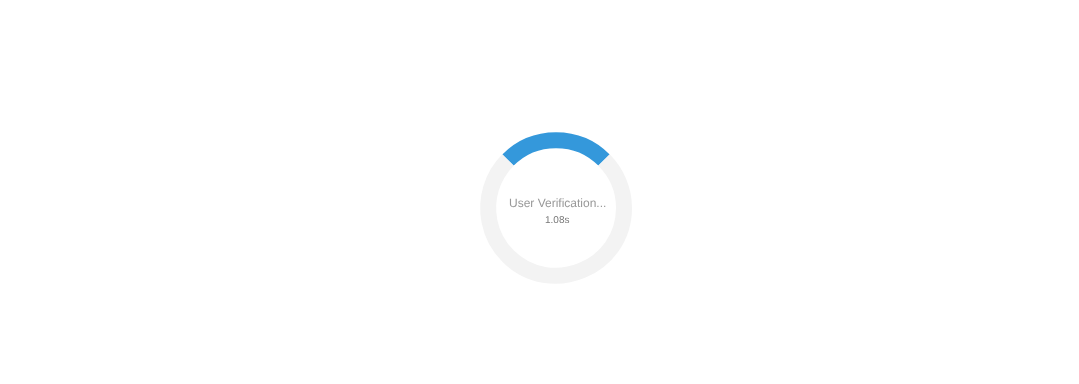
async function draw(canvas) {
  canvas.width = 1079
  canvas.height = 384
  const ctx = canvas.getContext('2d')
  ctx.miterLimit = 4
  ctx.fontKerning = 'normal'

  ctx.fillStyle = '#fff'
  ctx.fillRect(0, 0, 1079, 384)
  ctx.beginPath()
  ctx.moveTo(508, 160)
  ctx.bezierCurveTo(534, 133.5, 578, 133.5, 604, 160)
  ctx.strokeStyle = '#3498db'
  ctx.lineWidth = 16
  ctx.stroke()
  ctx.beginPath()
  ctx.moveTo(604, 160)
  ctx.bezierCurveTo(616.5, 172.5, 624, 190, 624, 208)
  ctx.bezierCurveTo(624, 268, 550.5, 298.5, 508, 256)
  ctx.bezierCurveTo(498.5, 246.5, 492, 234.5, 489.5, 221.5)
  ctx.bezierCurveTo(485, 199, 492, 176, 508, 160)
  ctx.strokeStyle = '#f3f3f3'
  ctx.stroke()
  ctx.font = '12px Liberation Sans'
  ctx.fillStyle = '#999'
  ctx.fillText('User Verification...', 509, 207)
  ctx.font = '10px Liberation Sans'
  ctx.fillStyle = '#777'
  ctx.fillText('1.08s', 545, 223)
}

draw(document.querySelector('canvas'))
